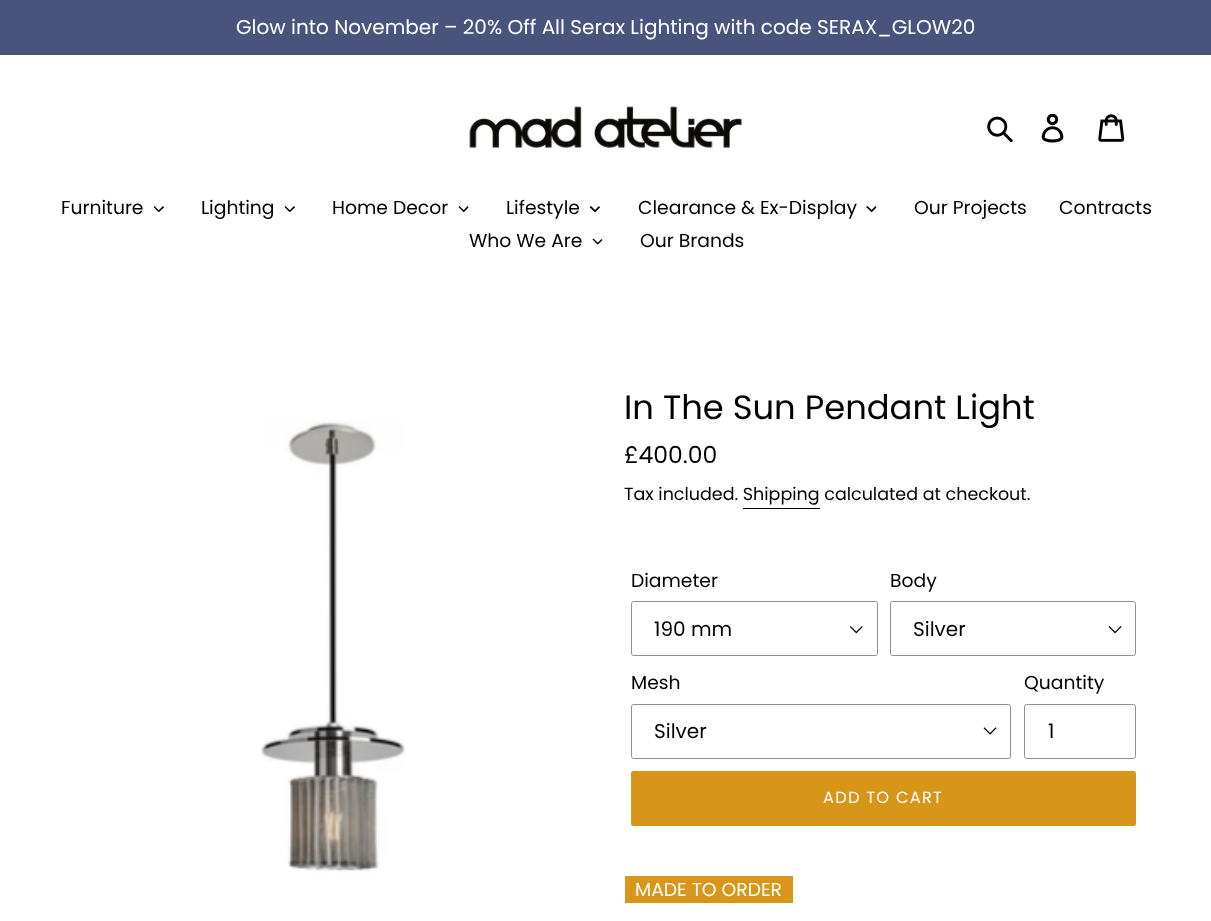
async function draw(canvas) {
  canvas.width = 1211
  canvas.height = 921
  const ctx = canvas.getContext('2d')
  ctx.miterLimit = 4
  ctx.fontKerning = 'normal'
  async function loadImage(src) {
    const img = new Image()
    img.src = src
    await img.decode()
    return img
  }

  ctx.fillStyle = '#fff'
  ctx.fillRect(0, 0, 1211, 921)
  ctx.fillStyle = '#49547d'
  ctx.fillRect(0, 0, 1211, 55)
  ctx.font = '20px Poppins'
  ctx.fillStyle = '#fff'
  ctx.fillText('Glow into November – 20% Off All Serax Lighting with code SERAX_GLOW20', 236, 34)
  ctx.drawImage(await loadImage('image0.png'), 469, 106, 273, 42)
  ctx.drawImage(await loadImage('image1.png'), 987, 116, 26, 27)
  ctx.drawImage(await loadImage('image2.png'), 1041, 114, 23, 29)
  ctx.drawImage(await loadImage('image3.png'), 1098, 114, 27, 28)
  ctx.font = '18.75px Poppins'
  ctx.fillStyle = '#000'
  ctx.fillText('Furniture', 61, 214)
  ctx.beginPath()
  ctx.moveTo(163, 206)
  ctx.lineTo(164, 207.5)
  ctx.lineTo(159, 212)
  ctx.lineTo(158, 211)
  ctx.closePath()
  ctx.fill()
  ctx.beginPath()
  ctx.moveTo(154.5, 206)
  ctx.lineTo(159.5, 211)
  ctx.lineTo(158.5, 212)
  ctx.lineTo(153.5, 207)
  ctx.closePath()
  ctx.fill()
  ctx.fillText('Lighting', 201, 214)
  ctx.beginPath()
  ctx.moveTo(294, 206)
  ctx.lineTo(295, 207.5)
  ctx.lineTo(290, 212)
  ctx.lineTo(289, 211)
  ctx.closePath()
  ctx.fill()
  ctx.beginPath()
  ctx.moveTo(285.5, 206)
  ctx.lineTo(290.5, 211)
  ctx.lineTo(289.5, 212)
  ctx.lineTo(284.5, 207)
  ctx.closePath()
  ctx.fill()
  ctx.fillText('Home Decor', 332, 214)
  ctx.beginPath()
  ctx.moveTo(467.5, 206)
  ctx.lineTo(468.5, 207.5)
  ctx.lineTo(464, 212)
  ctx.lineTo(463, 211)
  ctx.closePath()
  ctx.fill()
  ctx.beginPath()
  ctx.moveTo(459.5, 206)
  ctx.lineTo(464.5, 211)
  ctx.lineTo(463.5, 212)
  ctx.lineTo(458.5, 207)
  ctx.closePath()
  ctx.fill()
  ctx.fillText('Lifestyle', 506, 214)
  ctx.beginPath()
  ctx.moveTo(599, 206)
  ctx.lineTo(600, 207.5)
  ctx.lineTo(595.5, 212)
  ctx.lineTo(594, 211)
  ctx.closePath()
  ctx.fill()
  ctx.beginPath()
  ctx.moveTo(591, 206)
  ctx.lineTo(596, 211)
  ctx.lineTo(594.5, 212)
  ctx.lineTo(589.5, 207)
  ctx.closePath()
  ctx.fill()
  ctx.fillText('Clearance & Ex-Display', 638, 214)
  ctx.beginPath()
  ctx.moveTo(875.5, 206)
  ctx.lineTo(876.5, 207.5)
  ctx.lineTo(872, 212)
  ctx.lineTo(870.5, 211)
  ctx.closePath()
  ctx.fill()
  ctx.beginPath()
  ctx.moveTo(867.5, 206)
  ctx.lineTo(872.5, 211)
  ctx.lineTo(871.5, 212)
  ctx.lineTo(866, 207)
  ctx.closePath()
  ctx.fill()
  ctx.fillText('Our Projects', 914, 214)
  ctx.fillText('Contracts', 1059, 214)
  ctx.fillText('Who We Are', 469, 247)
  ctx.beginPath()
  ctx.moveTo(601.5, 239)
  ctx.lineTo(602.5, 240)
  ctx.lineTo(598, 244.5)
  ctx.lineTo(597, 243.5)
  ctx.closePath()
  ctx.fill()
  ctx.beginPath()
  ctx.moveTo(593.5, 238.5)
  ctx.lineTo(598.5, 243.5)
  ctx.lineTo(597.5, 244.5)
  ctx.lineTo(592.5, 239.5)
  ctx.closePath()
  ctx.fill()
  ctx.fillText('Our Brands', 640, 247)
  ctx.drawImage(await loadImage('image4.png'), 261, 420, 145, 453)
  ctx.font = '33.75px Poppins'
  ctx.fillText('In The Sun Pendant Light', 624, 419)
  ctx.font = '23.5px Poppins'
  ctx.fillText('£400.00', 624, 463)
  ctx.font = '17.5px Poppins'
  ctx.fillText('Tax included. Shipping calculated at checkout.', 624, 500)
  ctx.fillRect(743, 508, 77, 1)
  ctx.font = '18.75px Poppins'
  ctx.fillText('Diameter', 631, 587)
  ctx.drawImage(await loadImage('image5.png'), 849, 626, 14, 8)
  ctx.beginPath()
  ctx.roundRect(631.5, 601.5, 246, 54, 2)
  ctx.strokeStyle = '#909090'
  ctx.stroke()
  ctx.font = '20px Poppins'
  ctx.fillText('190 mm', 654, 636)
  ctx.font = '18.75px Poppins'
  ctx.fillText('Body', 890, 587)
  ctx.drawImage(await loadImage('image6.png'), 1108, 626, 14, 8)
  ctx.beginPath()
  ctx.roundRect(890.5, 601.5, 245, 54, 2)
  ctx.stroke()
  ctx.font = '20px Poppins'
  ctx.fillText('Silver', 913, 636)
  ctx.font = '18.75px Poppins'
  ctx.fillText('Mesh', 631, 689)
  ctx.drawImage(await loadImage('image7.png'), 983, 727, 14, 8)
  ctx.beginPath()
  ctx.roundRect(631.5, 704.5, 379, 54, 2)
  ctx.stroke()
  ctx.font = '20px Poppins'
  ctx.fillText('Silver', 654, 738)
  ctx.font = '18.75px Poppins'
  ctx.fillText('Quantity', 1024, 689)
  ctx.beginPath()
  ctx.roundRect(1024.5, 704.5, 111, 54, 2)
  ctx.stroke()
  ctx.font = '20px Poppins'
  ctx.fillText('1', 1048, 738)
  ctx.fillStyle = '#d79619'
  ctx.beginPath()
  ctx.roundRect(631, 771, 505, 55, 2.5)
  ctx.fill()
  ctx.letterSpacing = '1.25px'
  ctx.font = '16.25px Poppins'
  ctx.fillStyle = '#fff'
  ctx.fillText('ADD TO CART', 823, 803)
  ctx.fillStyle = '#d8961a'
  ctx.fillRect(625, 876, 168, 27)
  ctx.letterSpacing = '0px'
  ctx.font = '18.75px Poppins'
  ctx.fillStyle = '#fff'
  ctx.fillText('MADE TO ORDER', 635, 896)
}

draw(document.querySelector('canvas'))
